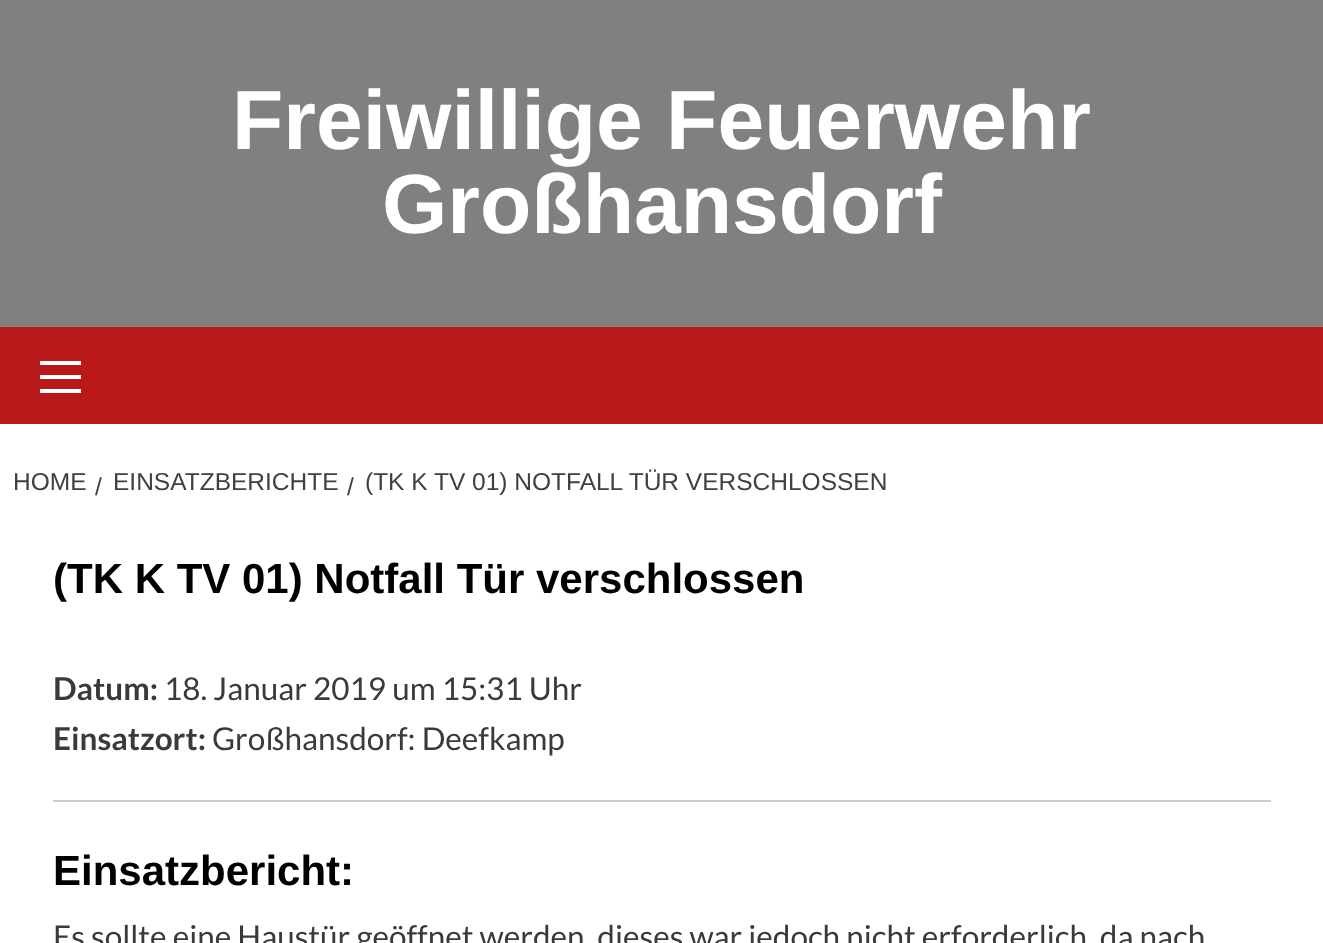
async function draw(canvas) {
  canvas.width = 1323
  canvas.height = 943
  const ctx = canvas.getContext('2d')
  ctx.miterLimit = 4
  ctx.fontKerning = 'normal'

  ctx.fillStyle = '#fff'
  ctx.fillRect(0, 0, 1323, 943)
  ctx.fillStyle = '#808080'
  ctx.fillRect(0, 0, 1323, 327)
  ctx.font = 'bold 84px Liberation Sans'
  ctx.fillStyle = '#fff'
  ctx.fillText('Freiwillige Feuerwehr', 232, 149)
  ctx.fillText('Großhansdorf', 382, 233)
  ctx.fillStyle = '#bb1919'
  ctx.fillRect(0, 327, 1323, 97)
  ctx.fillStyle = '#fff'
  ctx.fillRect(40, 375, 41, 4)
  ctx.fillRect(40, 361, 41, 4)
  ctx.fillRect(40, 389, 41, 4)
  ctx.font = '24.5px Liberation Sans'
  ctx.fillStyle = '#404040'
  ctx.fillText('HOME', 13, 490)
  ctx.fillText('/', 95, 495)
  ctx.fillText('EINSATZBERICHTE', 113, 490)
  ctx.fillText('/', 347, 495)
  ctx.fillText('(TK K TV 01) NOTFALL TÜR VERSCHLOSSEN', 365, 490)
  ctx.font = 'bold 42px Liberation Sans'
  ctx.fillStyle = '#000'
  ctx.fillText('(TK K TV 01) Notfall Tür verschlossen', 53, 593)
  ctx.font = 'bold 31.5px Lato'
  ctx.fillStyle = '#3a3a3a'
  ctx.fillText('Datum:', 53, 700)
  ctx.font = '31.5px Lato'
  ctx.fillText('18. Januar 2019 um 15:31 Uhr', 164, 700)
  ctx.font = 'bold 31.5px Lato'
  ctx.fillText('Einsatzort:', 53, 750)
  ctx.font = '31.5px Lato'
  ctx.fillText('Großhansdorf: Deefkamp', 212, 750)
  ctx.fillStyle = '#ccc'
  ctx.fillRect(53, 800, 1218, 2)
  ctx.font = 'bold 42px Liberation Sans'
  ctx.fillStyle = '#000'
  ctx.fillText('Einsatzbericht:', 53, 885)
  ctx.font = '31.5px Lato'
  ctx.fillStyle = '#3a3a3a'
  ctx.fillText('Es sollte eine Haustür geöffnet werden, dieses war jedoch nicht erforderlich, da nach', 53, 948)
}

draw(document.querySelector('canvas'))
